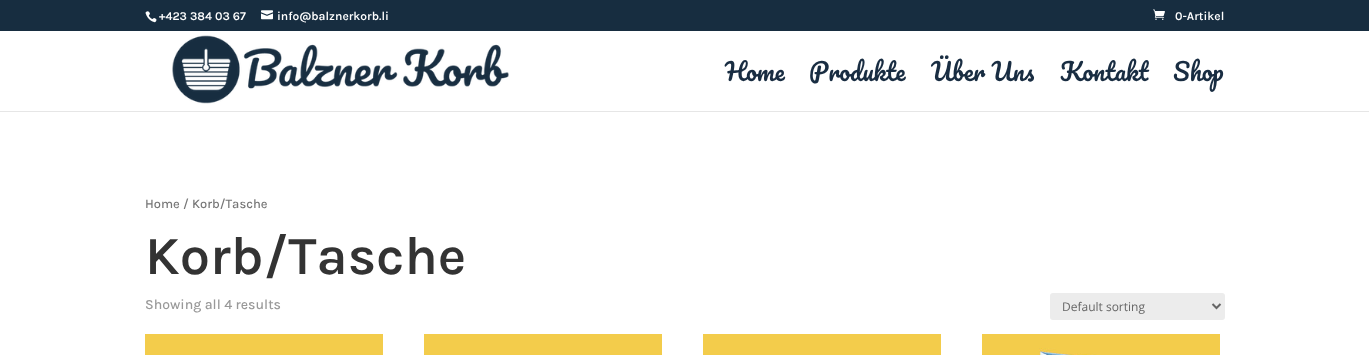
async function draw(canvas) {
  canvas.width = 1369
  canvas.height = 355
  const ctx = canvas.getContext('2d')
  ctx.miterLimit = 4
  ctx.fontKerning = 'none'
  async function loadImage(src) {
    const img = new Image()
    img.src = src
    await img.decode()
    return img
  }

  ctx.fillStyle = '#fff'
  ctx.fillRect(0, 0, 1369, 355)
  ctx.fillStyle = '#172d40'
  ctx.fillRect(0, 0, 1369, 31)
  ctx.drawImage(await loadImage('image0.png'), 145, 11, 12, 12)
  ctx.font = '600 12px Karla'
  ctx.fillStyle = '#fff'
  ctx.fillText('+423 384 03 67', 159, 20)
  ctx.drawImage(await loadImage('image1.png'), 261, 10, 12, 10)
  ctx.fillText('info@balznerkorb.li', 277, 20)
  ctx.drawImage(await loadImage('image2.png'), 1153, 9, 12, 11)
  ctx.fillText('0-Artikel', 1175, 20)
  ctx.fillStyle = '#e6e6e6'
  ctx.fillRect(0, 111, 1369, 1)
  ctx.drawImage(await loadImage('image3.png'), 172, 35, 337, 69)
  ctx.font = '24px Pacifico'
  ctx.fillStyle = '#192d42'
  ctx.fillText('Home', 725, 81)
  ctx.fillText('Produkte', 809, 81)
  ctx.fillText('Über Uns', 931, 81)
  ctx.fillText('Kontakt', 1060, 81)
  ctx.fillText('Shop', 1173, 81)
  ctx.font = '500 12.9px Karla'
  ctx.fillStyle = '#767676'
  ctx.fillText('Home / Korb/Tasche', 145, 208)
  ctx.font = '600 54px Karla'
  ctx.fillStyle = '#333'
  ctx.fillText('Korb/Tasche', 145, 274)
  ctx.font = '500 14px Karla'
  ctx.fillStyle = '#999'
  ctx.fillText('Showing all 4 results', 145, 309)
  ctx.fillStyle = '#ececec'
  ctx.beginPath()
  ctx.roundRect(1050, 293, 175, 27, 3)
  ctx.fill()
  ctx.beginPath()
  ctx.moveTo(1212.5, 304)
  ctx.lineTo(1216.5, 308)
  ctx.lineTo(1220.5, 304)
  ctx.strokeStyle = '#666'
  ctx.lineWidth = 2
  ctx.stroke()
  ctx.font = '12px Open Sans'
  ctx.fillStyle = '#666'
  ctx.fillText('Default sorting', 1062, 311)
  ctx.fillStyle = '#f3cc4b'
  ctx.fillRect(145, 334, 238, 21)
  ctx.fillRect(424, 334, 238, 21)
  ctx.fillRect(703, 334, 238, 21)
  ctx.drawImage(await loadImage('image4.png'), 982, 334, 238, 21)
}

draw(document.querySelector('canvas'))
